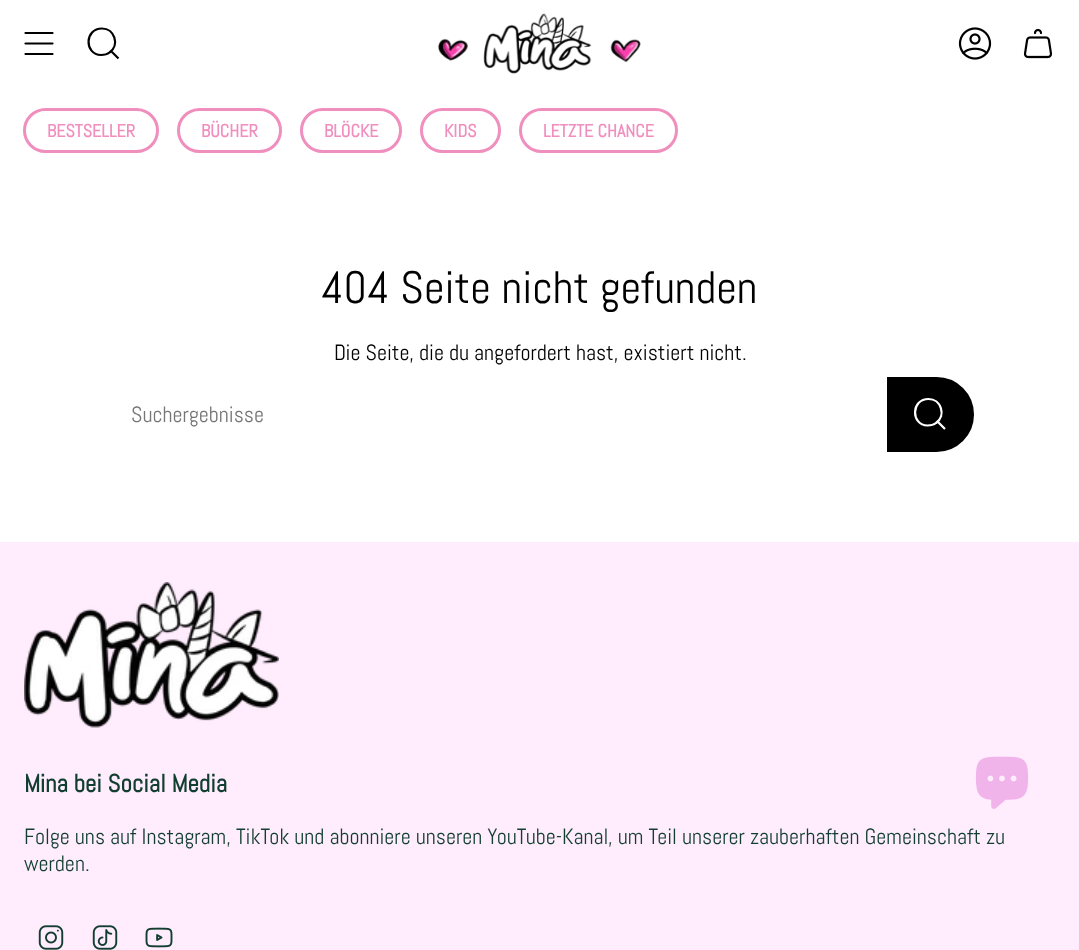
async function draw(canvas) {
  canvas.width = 1079
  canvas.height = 950
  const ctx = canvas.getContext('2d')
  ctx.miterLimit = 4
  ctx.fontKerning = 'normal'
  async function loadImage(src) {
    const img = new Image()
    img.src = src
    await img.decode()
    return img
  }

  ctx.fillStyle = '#fff'
  ctx.fillRect(0, 0, 1079, 950)
  ctx.beginPath()
  ctx.moveTo(25.5, 33)
  ctx.lineTo(52.5, 33)
  ctx.moveTo(25.5, 43.5)
  ctx.lineTo(52.5, 43.5)
  ctx.moveTo(25.5, 54)
  ctx.lineTo(52.5, 54)
  ctx.strokeStyle = '#000'
  ctx.lineWidth = 2.2
  ctx.lineCap = 'round'
  ctx.lineJoin = 'round'
  ctx.stroke()
  ctx.beginPath()
  ctx.moveTo(102, 28.5)
  ctx.bezierCurveTo(114.5, 28.5, 120, 45, 109.5, 52.5)
  ctx.bezierCurveTo(107, 54.5, 104, 55, 101, 55)
  ctx.bezierCurveTo(84, 54.5, 84.5, 28.5, 102, 28.5)
  ctx.closePath()
  ctx.moveTo(111, 51)
  ctx.lineTo(118.5, 58.5)
  ctx.lineCap = 'butt'
  ctx.lineJoin = 'miter'
  ctx.stroke()
  ctx.drawImage(await loadImage('image0.png'), 438, 13, 203, 61)
  ctx.drawImage(await loadImage('image1.png'), 958, 27, 34, 33)
  ctx.drawImage(await loadImage('image2.png'), 1023, 28, 30, 31)
  ctx.beginPath()
  ctx.roundRect(24.5, 109.5, 133, 42, 21)
  ctx.strokeStyle = '#f08ebe'
  ctx.lineWidth = 3
  ctx.stroke()
  ctx.font = 'bold 18px Abel'
  ctx.fillStyle = '#f08ebe'
  ctx.fillText('BESTSELLER', 47, 137)
  ctx.beginPath()
  ctx.roundRect(178.5, 109.5, 102, 42, 21)
  ctx.stroke()
  ctx.fillText('BÜCHER', 201, 137)
  ctx.beginPath()
  ctx.roundRect(301.5, 109.5, 99, 42, 21)
  ctx.stroke()
  ctx.fillText('BLÖCKE', 324, 137)
  ctx.beginPath()
  ctx.roundRect(421.5, 109.5, 78, 42, 21)
  ctx.stroke()
  ctx.fillText('KIDS', 444, 137)
  ctx.beginPath()
  ctx.roundRect(520.5, 109.5, 156, 42, 21)
  ctx.stroke()
  ctx.fillText('LETZTE CHANCE', 543, 137)
  ctx.font = '45.5px Abel'
  ctx.fillStyle = '#000'
  ctx.fillText('404 Seite nicht gefunden', 321, 303)
  ctx.font = '22.05px Abel'
  ctx.fillText('Die Seite, die du angefordert hast, existiert nicht.', 334, 360)
  ctx.fillStyle = '#757575'
  ctx.fillText('Suchergebnisse', 131, 422)
  ctx.fillStyle = '#000'
  ctx.beginPath()
  ctx.roundRect(888, 378, 85, 73, [0, 36.5, 36.5, 0])
  ctx.fill()
  ctx.strokeStyle = '#000'
  ctx.lineWidth = 2
  ctx.stroke()
  ctx.beginPath()
  ctx.moveTo(928.5, 399)
  ctx.bezierCurveTo(941, 399, 946.5, 415.5, 936, 423)
  ctx.bezierCurveTo(933.5, 425, 930.5, 425.5, 927.5, 425.5)
  ctx.bezierCurveTo(910.5, 425, 911, 399, 928.5, 399)
  ctx.closePath()
  ctx.moveTo(937.5, 421.5)
  ctx.lineTo(945, 429)
  ctx.strokeStyle = '#fff'
  ctx.lineWidth = 2.2
  ctx.stroke()
  ctx.fillStyle = '#ffecfd'
  ctx.fillRect(0, 542, 1079, 408)
  ctx.drawImage(await loadImage('image3.png'), 975, 756, 54, 53)
  ctx.drawImage(await loadImage('image4.png'), 24, 582, 255, 146)
  ctx.font = 'bold 25px Abel'
  ctx.fillStyle = '#113e30'
  ctx.fillText('Mina bei Social Media', 24, 792)
  ctx.font = '22.05px Abel'
  ctx.fillText('Folge uns auf Instagram, TikTok und abonniere unseren YouTube-Kanal, um Teil unserer zauberhaften Gemeinschaft zu', 24, 844)
  ctx.fillText('werden.', 24, 871)
  ctx.drawImage(await loadImage('image5.png'), 38, 925, 26, 25)
  ctx.drawImage(await loadImage('image6.png'), 92, 925, 26, 25)
  ctx.drawImage(await loadImage('image7.png'), 145, 927, 28, 21)
}

draw(document.querySelector('canvas'))
